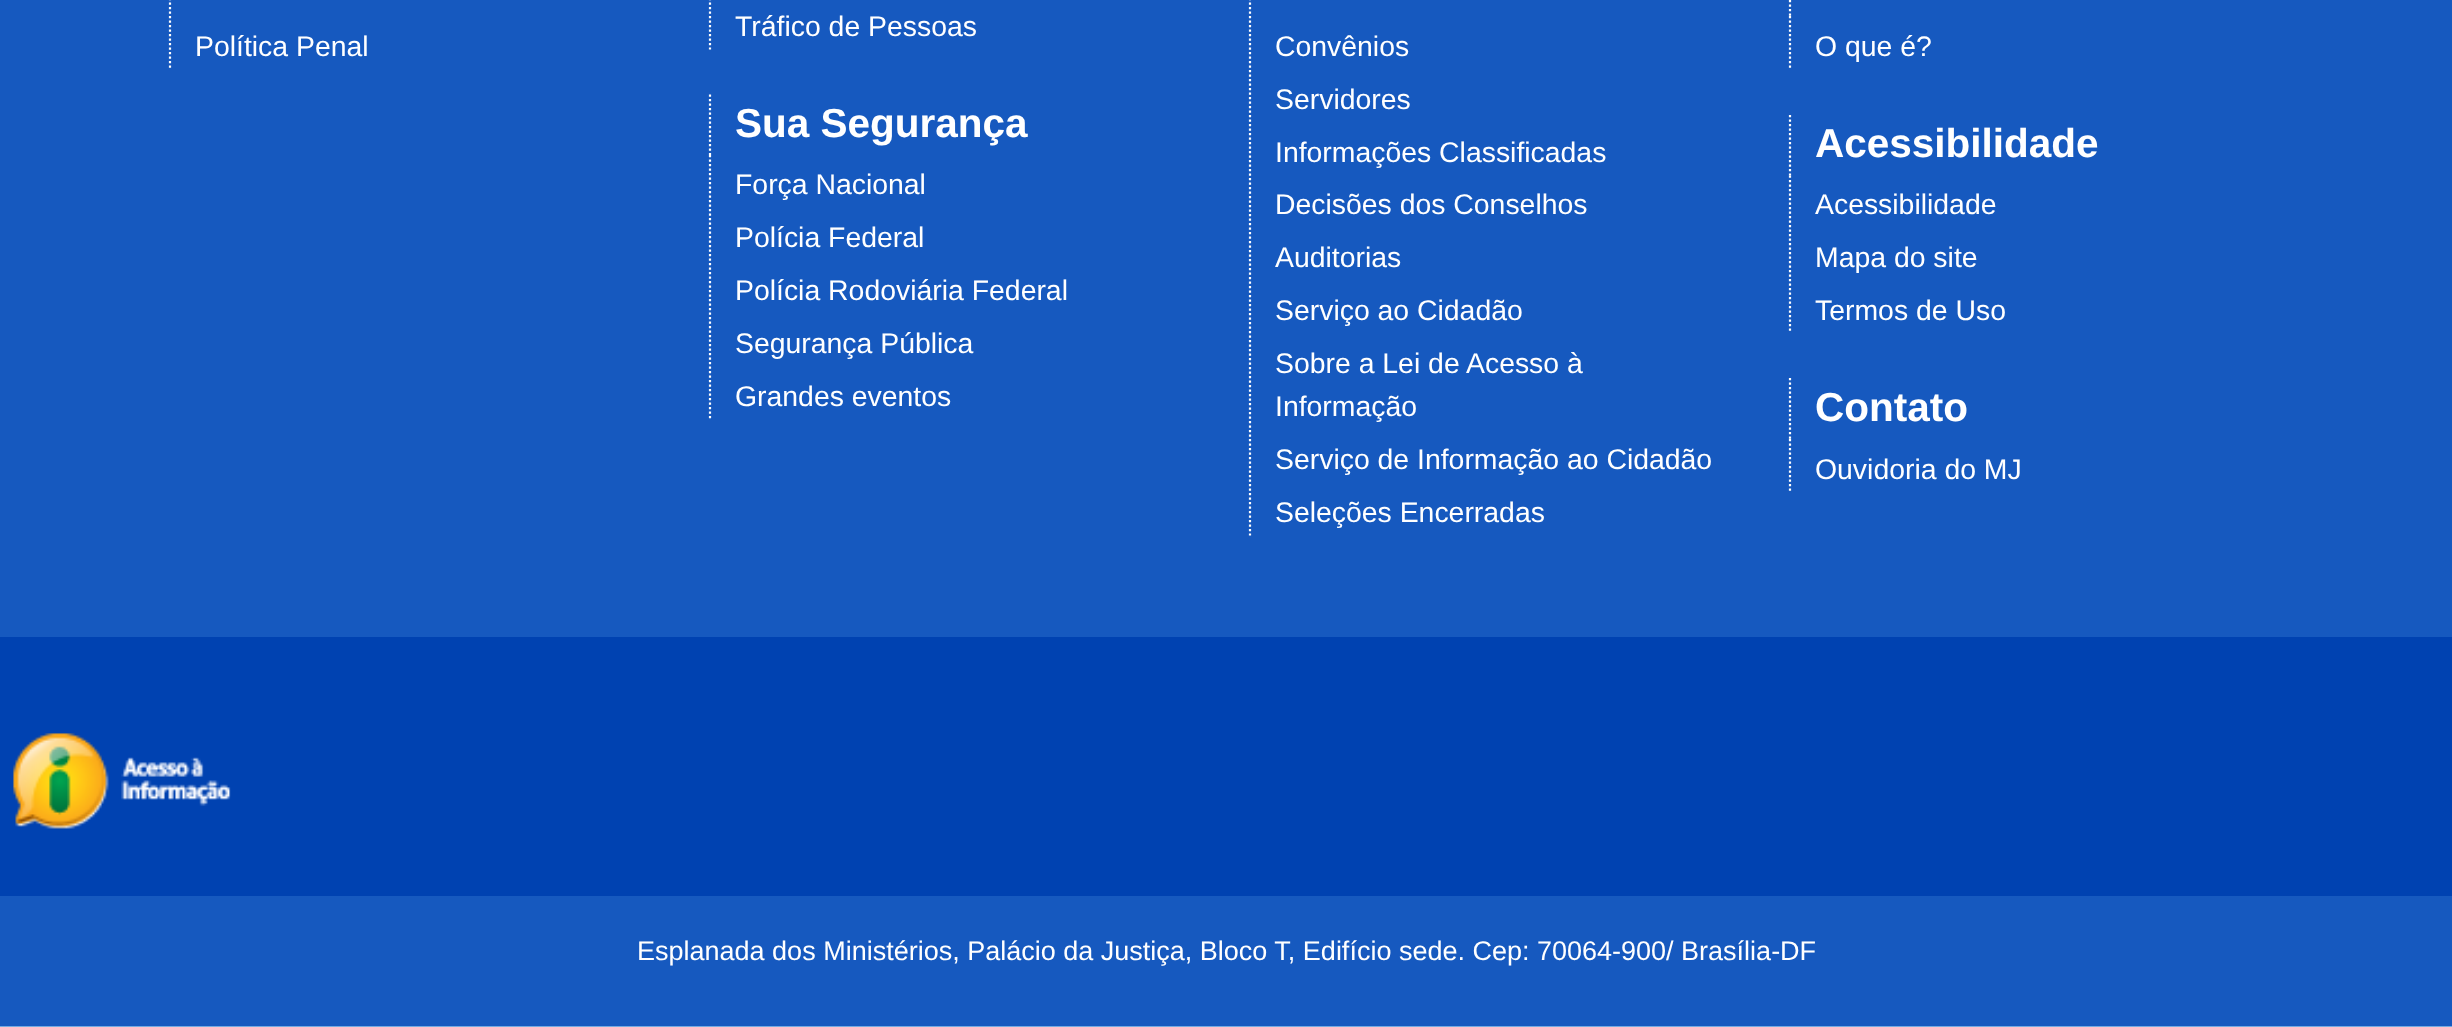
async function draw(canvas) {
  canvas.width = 2452
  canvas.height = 1027
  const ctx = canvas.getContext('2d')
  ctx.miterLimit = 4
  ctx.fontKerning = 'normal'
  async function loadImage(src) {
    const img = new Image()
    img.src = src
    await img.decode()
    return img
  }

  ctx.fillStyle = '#1659bf'
  ctx.fillRect(0, 0, 2452, 1027)
  ctx.fillStyle = '#73aae2'
  ctx.fillRect(0, 1026, 2452, 1)
  ctx.beginPath()
  ctx.moveTo(170, -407)
  ctx.lineTo(170, 70)
  ctx.strokeStyle = '#fff'
  ctx.lineWidth = 2.2
  ctx.setLineDash([2.25, 2.25])
  ctx.stroke()
  ctx.font = '28.4px Liberation Sans'
  ctx.fillStyle = '#fff'
  ctx.fillText('Política Penal', 195, 56)
  ctx.beginPath()
  ctx.moveTo(710, -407)
  ctx.lineTo(710, 49.5)
  ctx.stroke()
  ctx.fillText('Tráfico de Pessoas', 735, 36)
  ctx.beginPath()
  ctx.moveTo(710, 94.5)
  ctx.lineTo(710, 155)
  ctx.stroke()
  ctx.font = 'bold 40.5px Liberation Sans'
  ctx.fillText('Sua Segurança', 735, 137)
  ctx.beginPath()
  ctx.moveTo(710, 155)
  ctx.lineTo(710, 418.5)
  ctx.stroke()
  ctx.font = '28.4px Liberation Sans'
  ctx.fillText('Força Nacional', 735, 194)
  ctx.fillText('Polícia Federal', 735, 247)
  ctx.fillText('Polícia Rodoviária Federal', 735, 300)
  ctx.fillText('Segurança Pública', 735, 353)
  ctx.fillText('Grandes eventos', 735, 406)
  ctx.beginPath()
  ctx.moveTo(1250, -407)
  ctx.lineTo(1250, 535.5)
  ctx.stroke()
  ctx.fillText('Convênios', 1275, 56)
  ctx.fillText('Servidores', 1275, 109)
  ctx.fillText('Informações Classificadas', 1275, 162)
  ctx.fillText('Decisões dos Conselhos', 1275, 214)
  ctx.fillText('Auditorias', 1275, 267)
  ctx.fillText('Serviço ao Cidadão', 1275, 320)
  ctx.fillText('Sobre a Lei de Acesso à', 1275, 373)
  ctx.fillText('Informação', 1275, 416)
  ctx.fillText('Serviço de Informação ao Cidadão', 1275, 469)
  ctx.fillText('Seleções Encerradas', 1275, 522)
  ctx.beginPath()
  ctx.moveTo(1790, -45)
  ctx.lineTo(1790, 16)
  ctx.stroke()
  ctx.beginPath()
  ctx.moveTo(1790, 16)
  ctx.lineTo(1790, 70)
  ctx.stroke()
  ctx.fillText('O que é?', 1815, 56)
  ctx.beginPath()
  ctx.moveTo(1790, 115)
  ctx.lineTo(1790, 175.5)
  ctx.stroke()
  ctx.font = 'bold 40.5px Liberation Sans'
  ctx.fillText('Acessibilidade', 1815, 157)
  ctx.beginPath()
  ctx.moveTo(1790, 175.5)
  ctx.lineTo(1790, 333)
  ctx.stroke()
  ctx.font = '28.4px Liberation Sans'
  ctx.fillText('Acessibilidade', 1815, 214)
  ctx.fillText('Mapa do site', 1815, 267)
  ctx.fillText('Termos de Uso', 1815, 320)
  ctx.beginPath()
  ctx.moveTo(1790, 378)
  ctx.lineTo(1790, 439)
  ctx.stroke()
  ctx.font = 'bold 40.5px Liberation Sans'
  ctx.fillText('Contato', 1815, 421)
  ctx.beginPath()
  ctx.moveTo(1790, 439)
  ctx.lineTo(1790, 493)
  ctx.stroke()
  ctx.font = '28.4px Liberation Sans'
  ctx.fillText('Ouvidoria do MJ', 1815, 479)
  ctx.fillStyle = '#0042b1'
  ctx.fillRect(0, 637, 2452, 259)
  ctx.drawImage(await loadImage('image0.png'), 13, 733, 218, 96)
  ctx.font = '27px Liberation Sans'
  ctx.fillStyle = '#fff'
  ctx.fillText('Esplanada dos Ministérios, Palácio da Justiça, Bloco T, Edifício sede. Cep: 70064-900/ Brasília-DF', 637, 960)
}

draw(document.querySelector('canvas'))
